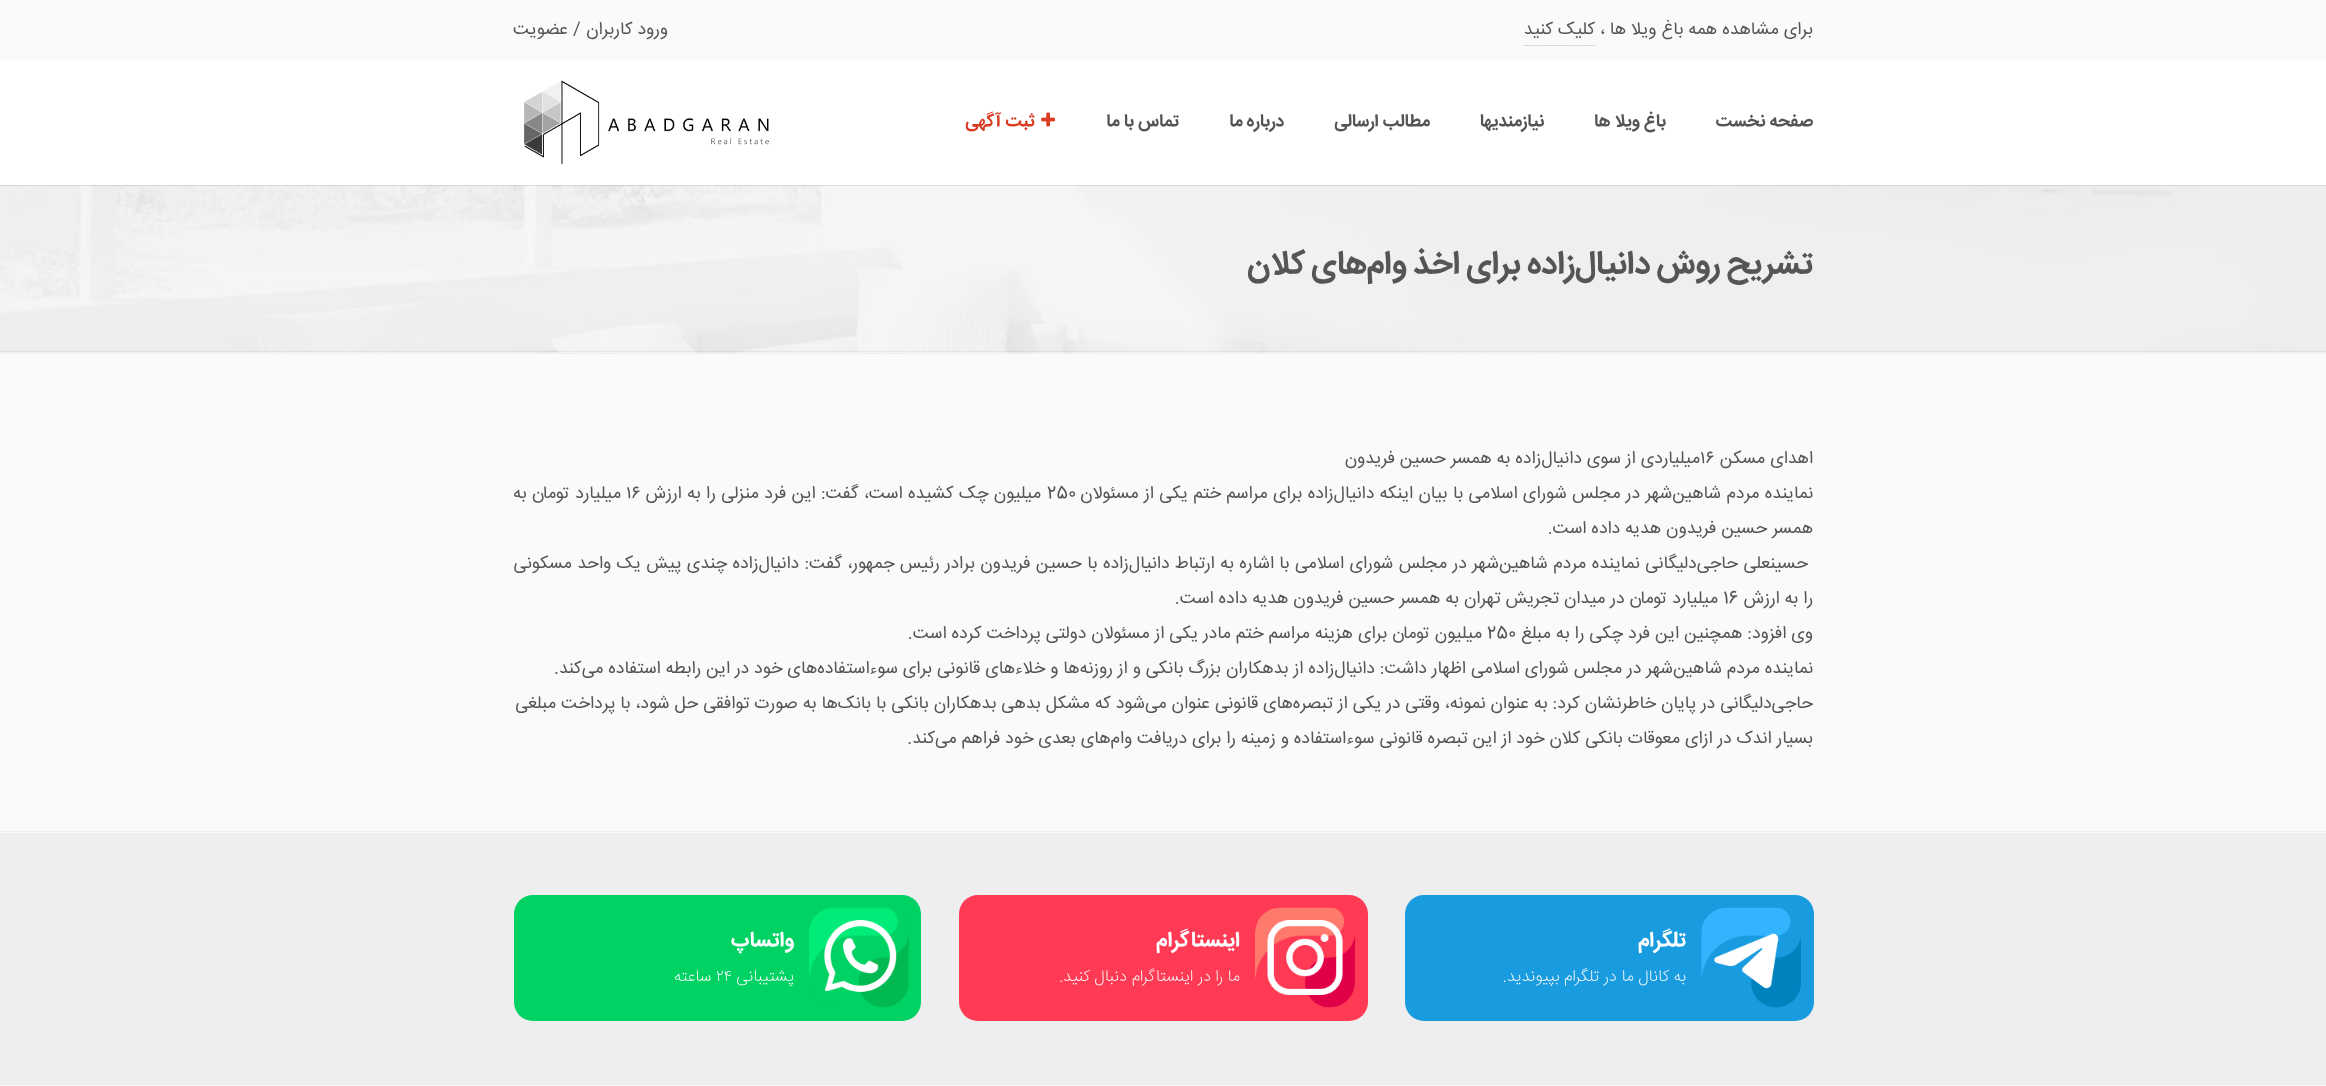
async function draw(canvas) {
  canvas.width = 2326
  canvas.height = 1086
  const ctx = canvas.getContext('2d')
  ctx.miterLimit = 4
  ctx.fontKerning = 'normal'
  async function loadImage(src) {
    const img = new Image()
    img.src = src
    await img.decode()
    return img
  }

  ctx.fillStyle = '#fafafa'
  ctx.fillRect(0, 0, 2326, 1086)
  ctx.direction = 'rtl'
  ctx.font = '17.5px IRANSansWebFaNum'
  ctx.fillStyle = '#555'
  ctx.fillText('برای مشاهده همه باغ ویلا ها ،', 1813, 34)
  ctx.fillText('کلیک کنید', 1595, 34)
  ctx.beginPath()
  ctx.moveTo(1524, 45.5)
  ctx.lineTo(1595, 45.5)
  ctx.strokeStyle = '#bbb'
  ctx.lineWidth = 1.2
  ctx.setLineDash([1.25, 1.25])
  ctx.stroke()
  ctx.fillText('ورود کاربران', 668, 34)
  ctx.direction = 'ltr'
  ctx.fillText('/', 573, 34)
  ctx.direction = 'rtl'
  ctx.fillText('عضویت', 568, 34)
  ctx.fillStyle = '#fff'
  ctx.fillRect(0, 60, 2326, 125)
  ctx.font = 'bold 17.5px IRANSansWebFaNum'
  ctx.fillStyle = '#555'
  ctx.fillText('صفحه نخست', 1813, 126)
  ctx.fillText('باغ ویلا ها', 1666, 126)
  ctx.fillText('نیازمندیها', 1544, 126)
  ctx.fillText('مطالب ارسالی', 1430, 126)
  ctx.fillText('درباره ما', 1284, 126)
  ctx.fillText('تماس با ما', 1179, 126)
  ctx.drawImage(await loadImage('image0.png'), 1041, 112, 14, 15)
  ctx.fillStyle = '#da3c23'
  ctx.fillText('ثبت آگهی', 1035, 126)
  ctx.drawImage(await loadImage('image1.png'), 524, 80, 245, 85)
  ctx.fillStyle = '#f5f5f5'
  ctx.fillRect(0, 352, 2326, 1)
  ctx.drawImage(await loadImage('image2.png'), 0, 185, 2326, 168)
  ctx.fillStyle = '#0000001a'
  ctx.fillRect(0, 185, 2326, 1)
  ctx.wordSpacing = '-1.25px'
  ctx.font = 'bold 32.5px IRANSansWebFaNum'
  ctx.fillStyle = '#555'
  ctx.fillText('تشریح روش دانیال‌زاده برای اخذ وام‌های کلان', 1813, 273)
  ctx.fillStyle = '#0000000d'
  ctx.fillRect(0, 351, 2326, 1)
  ctx.fillStyle = '#eee'
  ctx.fillRect(0, 353, 2326, 1)
  ctx.fillRect(0, 831, 2326, 1)
  ctx.wordSpacing = '0px'
  ctx.font = '17.5px IRANSansWebFaNum'
  ctx.fillStyle = '#555'
  ctx.fillText('اهدای مسکن', 1813, 463)
  ctx.direction = 'ltr'
  ctx.fillText('۱۶', 1700, 463)
  ctx.direction = 'rtl'
  ctx.fillText('میلیاردی از سوی دانیال‌زاده به همسر حسین فریدون', 1700, 463)
  ctx.wordSpacing = '0.4px'
  ctx.fillText('نماینده مردم شاهین‌شهر در مجلس شورای اسلامی با بیان اینکه دانیال‌زاده برای مراسم ختم یکی از مسئولان', 1813, 498)
  ctx.wordSpacing = '0px'
  ctx.direction = 'ltr'
  ctx.fillText('250', 1047, 498)
  ctx.wordSpacing = '0.4px'
  ctx.direction = 'rtl'
  ctx.fillText('میلیون چک کشیده است، گفت: این فرد منزلی را به ارزش', 1041, 498)
  ctx.wordSpacing = '0px'
  ctx.direction = 'ltr'
  ctx.fillText('۱۶', 626, 498)
  ctx.wordSpacing = '0.4px'
  ctx.direction = 'rtl'
  ctx.fillText('میلیارد تومان به', 621, 498)
  ctx.wordSpacing = '0px'
  ctx.fillText('همسر حسین فریدون هدیه داده است.', 1813, 533)
  ctx.wordSpacing = '0.45px'
  ctx.fillText('حسینعلی حاجی‌دلیگانی نماینده مردم شاهین‌شهر در مجلس شورای اسلامی با اشاره به ارتباط دانیال‌زاده با حسین فریدون برادر رئیس جمهور، گفت: دانیال‌زاده چندی پیش یک واحد مسکونی', 1808, 568)
  ctx.wordSpacing = '0px'
  ctx.fillText('را به ارزش', 1813, 603)
  ctx.direction = 'ltr'
  ctx.fillText('16', 1723, 603)
  ctx.direction = 'rtl'
  ctx.fillText('میلیارد تومان در میدان تجریش تهران به همسر حسین فریدون هدیه داده است.', 1718, 603)
  ctx.fillText('وی افزود: همچنین این فرد چکی را به مبلغ', 1813, 638)
  ctx.direction = 'ltr'
  ctx.fillText('250', 1487, 638)
  ctx.direction = 'rtl'
  ctx.fillText('میلیون تومان برای هزینه مراسم ختم مادر یکی از مسئولان دولتی پرداخت کرده است.', 1482, 638)
  ctx.fillText('نماینده مردم شاهین‌شهر در مجلس شورای اسلامی اظهار داشت: دانیال‌زاده از بدهکاران بزرگ بانکی و از روزنه‌ها و خلاءهای قانونی برای سوءاستفاده‌های خود در این رابطه استفاده می‌کند.', 1813, 673)
  ctx.fillText('حاجی‌دلیگانی در پایان خاطرنشان کرد: به عنوان نمونه، وقتی در یکی از تبصره‌های قانونی عنوان می‌شود که مشکل بدهی بدهکاران بانکی با بانک‌ها به صورت توافقی حل شود، با پرداخت مبلغی', 1813, 708)
  ctx.fillText('بسیار اندک در ازای معوقات بانکی کلان خود از این تبصره قانونی سوءاستفاده و زمینه را برای دریافت وام‌های بعدی خود فراهم می‌کند.', 1813, 743)
  ctx.fillStyle = '#eee'
  ctx.fillRect(0, 833, 2326, 252)
  ctx.fillStyle = '#199bdf'
  ctx.beginPath()
  ctx.roundRect(1405, 895, 409, 126, 19)
  ctx.fill()
  ctx.drawImage(await loadImage('image3.png'), 1701, 907, 100, 101)
  ctx.font = 'bold 21px IRANSansWebFaNum'
  ctx.fillStyle = '#fff'
  ctx.fillText('تلگرام', 1686, 946)
  ctx.font = '200 16.25px IRANSansWebFaNum'
  ctx.fillText('به کانال ما در تلگرام بپیوندید.', 1686, 981)
  ctx.fillStyle = '#ff3a55'
  ctx.beginPath()
  ctx.roundRect(959, 895, 409, 126, 19)
  ctx.fill()
  ctx.drawImage(await loadImage('image4.png'), 1255, 907, 100, 101)
  ctx.font = 'bold 21px IRANSansWebFaNum'
  ctx.fillStyle = '#fff'
  ctx.fillText('اینستاگرام', 1240, 946)
  ctx.font = '200 16.25px IRANSansWebFaNum'
  ctx.fillText('ما را در اینستاگرام دنبال کنید.', 1240, 981)
  ctx.fillStyle = '#00d264'
  ctx.beginPath()
  ctx.roundRect(514, 895, 407, 126, 19)
  ctx.fill()
  ctx.drawImage(await loadImage('image5.png'), 809, 907, 100, 101)
  ctx.font = 'bold 21px IRANSansWebFaNum'
  ctx.fillStyle = '#fff'
  ctx.fillText('واتساپ', 794, 946)
  ctx.font = '200 16.25px IRANSansWebFaNum'
  ctx.fillText('پشتیبانی', 794, 981)
  ctx.direction = 'ltr'
  ctx.fillText('٢۴', 716, 981)
  ctx.direction = 'rtl'
  ctx.fillText('ساعته', 711, 981)
}

draw(document.querySelector('canvas'))
